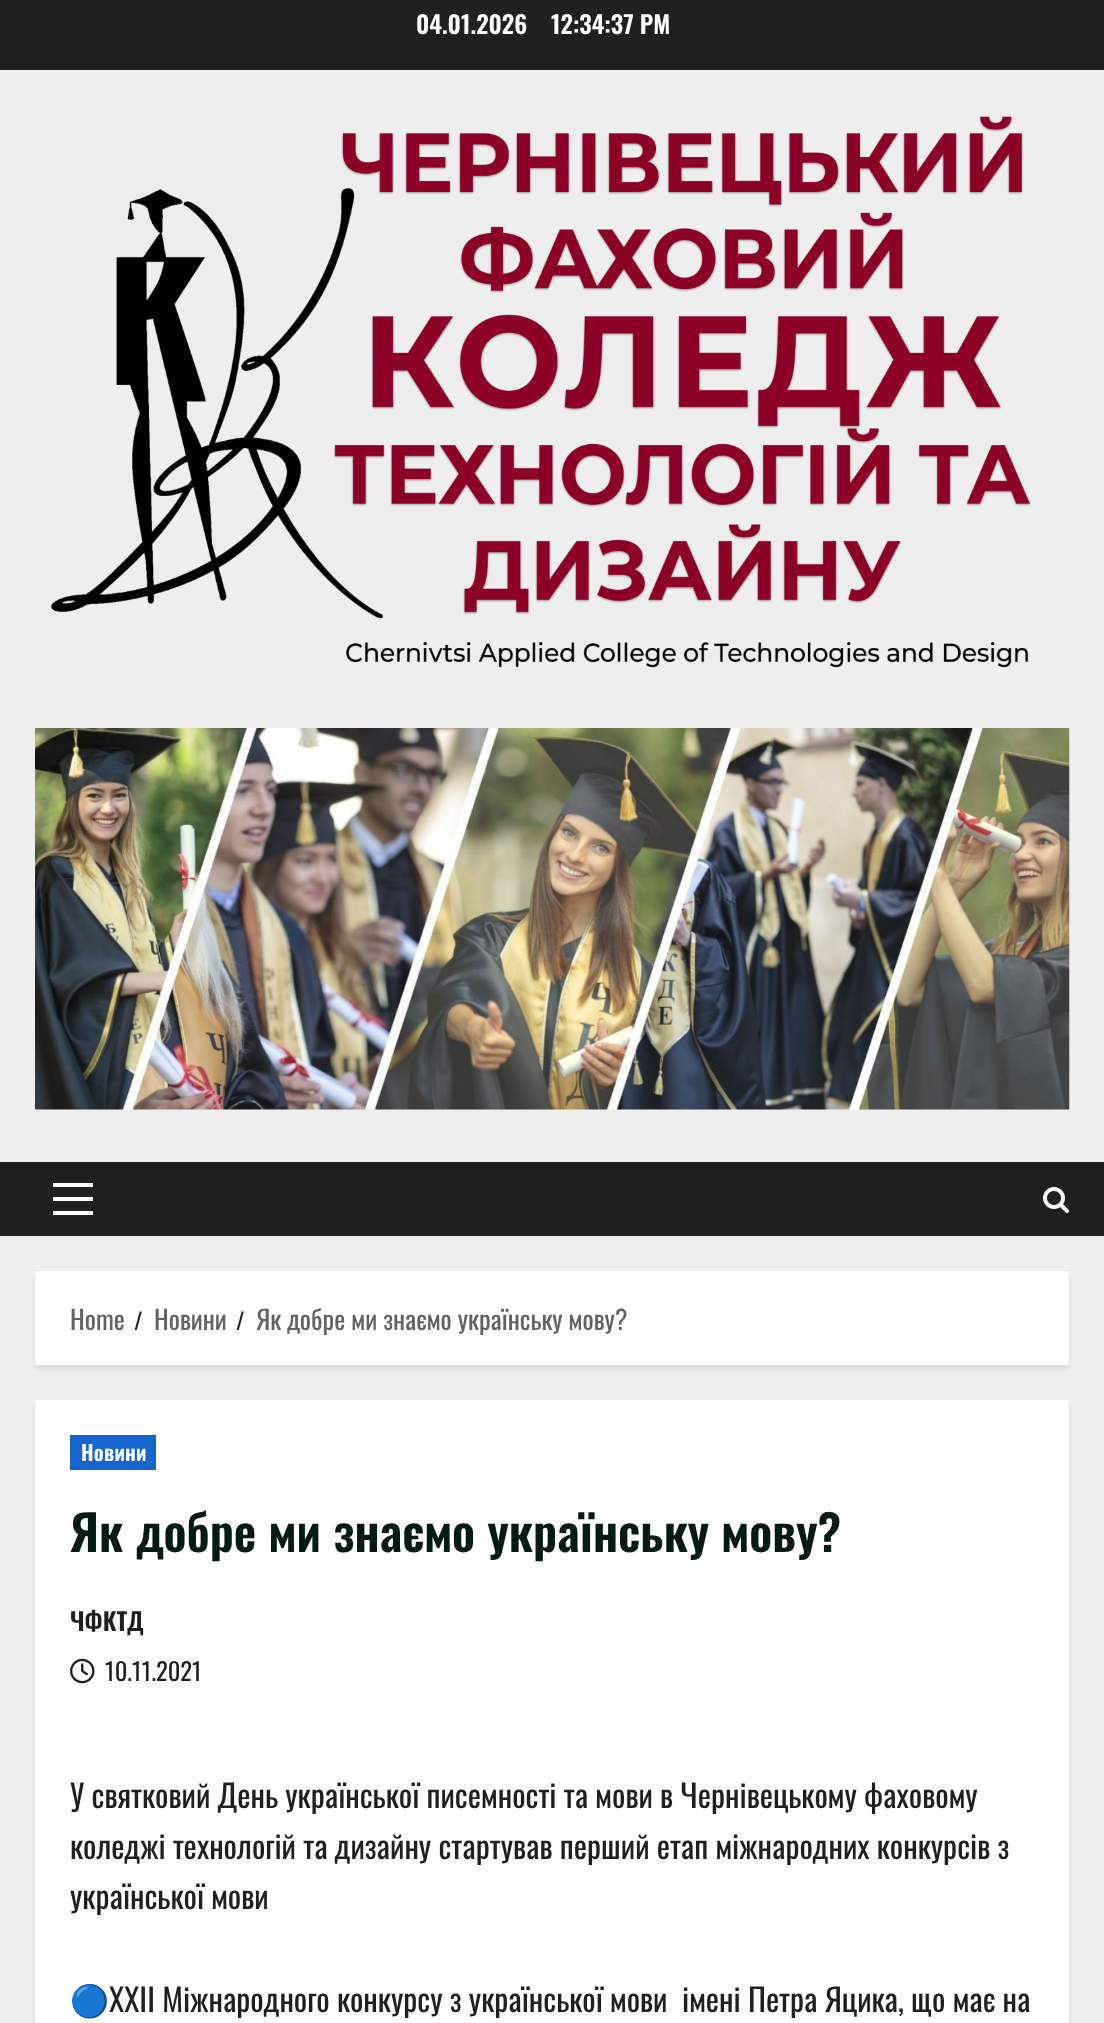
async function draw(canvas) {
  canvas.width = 1104
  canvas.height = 2023
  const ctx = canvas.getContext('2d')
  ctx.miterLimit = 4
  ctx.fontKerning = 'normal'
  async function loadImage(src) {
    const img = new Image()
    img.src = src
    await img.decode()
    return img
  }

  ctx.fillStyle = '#eee'
  ctx.fillRect(0, 0, 1104, 2023)
  ctx.fillStyle = '#202020'
  ctx.fillRect(0, 0, 1104, 70)
  ctx.font = '600 24.5px Oswald'
  ctx.fillStyle = '#fff'
  ctx.fillText('04.01.2026', 416, 34)
  ctx.fillText('12:34:37 PM', 551, 34)
  ctx.drawImage(await loadImage('image0.png'), 50, 116, 981, 552)
  ctx.drawImage(await loadImage('image1.png'), 35, 728, 1035, 382)
  ctx.fillStyle = '#202020'
  ctx.fillRect(0, 1162, 1104, 74)
  ctx.fillStyle = '#fff'
  ctx.fillRect(53, 1197, 40, 4)
  ctx.fillRect(53, 1183, 40, 4)
  ctx.fillRect(53, 1211, 40, 4)
  ctx.drawImage(await loadImage('image2.png'), 1043, 1187, 26, 26)
  ctx.fillStyle = '#00000014'
  ctx.filter = 'blur(2px)'
  ctx.beginPath()
  ctx.rect(35, 1274, 1034, 95)
  ctx.fill()
  ctx.filter = 'none'
  ctx.fillStyle = '#fff'
  ctx.fillRect(35, 1271, 1034, 94)
  ctx.font = '26.25px Oswald'
  ctx.fillStyle = '#626262'
  ctx.fillText('Home', 70, 1330)
  ctx.font = '23px Oswald'
  ctx.fillStyle = '#1f1f1f'
  ctx.fillText('/', 134, 1330)
  ctx.font = '26.25px Oswald'
  ctx.fillStyle = '#626262'
  ctx.fillText('Новини', 154, 1330)
  ctx.font = '23px Oswald'
  ctx.fillStyle = '#1f1f1f'
  ctx.fillText('/', 236, 1330)
  ctx.font = '26.25px Oswald'
  ctx.fillStyle = '#626262'
  ctx.fillText('Як добре ми знаємо українську мову?', 256, 1330)
  ctx.fillStyle = '#00000014'
  ctx.filter = 'blur(2px)'
  ctx.beginPath()
  ctx.rect(35, 1404, 1034, 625)
  ctx.fill()
  ctx.filter = 'none'
  ctx.fillStyle = '#fff'
  ctx.fillRect(35, 1400, 1034, 623)
  ctx.fillStyle = '#1665cf'
  ctx.fillRect(70, 1435, 86, 35)
  ctx.letterSpacing = '0.25px'
  ctx.font = '600 21px Oswald'
  ctx.fillStyle = '#fff'
  ctx.fillText('Новини', 81, 1461)
  ctx.letterSpacing = '0px'
  ctx.font = '600 49px Oswald'
  ctx.fillStyle = '#031b11'
  ctx.fillText('Як добре ми знаємо українську мову?', 70, 1552)
  ctx.font = '600 24.5px Oswald'
  ctx.fillStyle = '#1f1f1f'
  ctx.fillText('ЧФКТД', 70, 1631)
  ctx.drawImage(await loadImage('image3.png'), 70, 1658, 25, 26)
  ctx.font = '24.5px Oswald'
  ctx.fillText('10.11.2021', 105, 1681)
  ctx.font = '31.5px Oswald'
  ctx.fillText('У святковий День української писемності та мови в Чернівецькому фаховому', 70, 1808)
  ctx.fillText('коледжі технологій та дизайну стартував перший етап міжнародних конкурсів з', 70, 1859)
  ctx.fillText('української мови', 70, 1909)
  ctx.font = '31.5px Noto Color Emoji'
  ctx.fillText('🔵', 70, 2012)
  ctx.font = '31.5px Oswald'
  ctx.fillText('ХХІІ Міжнародного конкурсу з української мови  імені Петра Яцика, що має на', 109, 2012)
}

draw(document.querySelector('canvas'))
